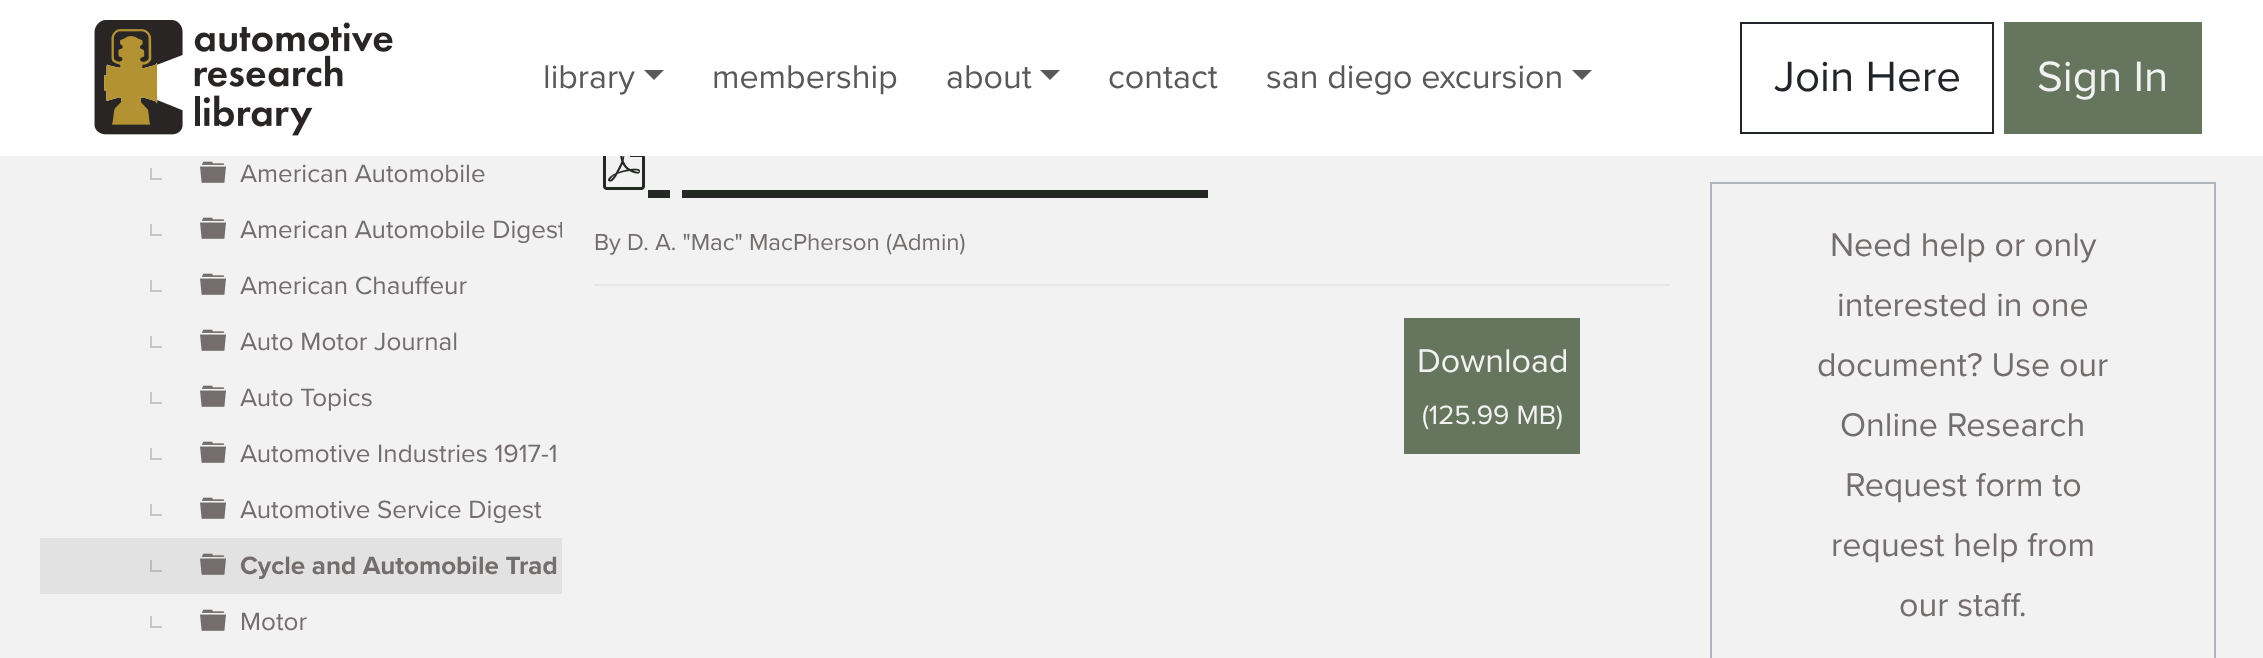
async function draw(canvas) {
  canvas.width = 2263
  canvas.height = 658
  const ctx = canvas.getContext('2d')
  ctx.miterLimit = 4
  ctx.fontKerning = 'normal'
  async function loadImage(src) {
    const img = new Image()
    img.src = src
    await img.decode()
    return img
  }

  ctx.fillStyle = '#f2f2f2'
  ctx.fillRect(0, 0, 2263, 658)
  ctx.fillStyle = '#fff'
  ctx.fillRect(0, 0, 2263, 156)
  ctx.drawImage(await loadImage('image0.png'), 94, 20, 299, 116)
  ctx.font = '34px Proxima Nova'
  ctx.fillStyle = '#595959'
  ctx.fillText('library', 543, 88)
  ctx.beginPath()
  ctx.moveTo(644, 70)
  ctx.lineTo(664, 70)
  ctx.lineTo(654, 80)
  ctx.closePath()
  ctx.fill()
  ctx.fillText('membership', 712, 88)
  ctx.fillText('about', 946, 88)
  ctx.beginPath()
  ctx.moveTo(1040, 70)
  ctx.lineTo(1060, 70)
  ctx.lineTo(1050, 80)
  ctx.closePath()
  ctx.fill()
  ctx.fillText('contact', 1108, 88)
  ctx.fillText('san diego excursion', 1266, 88)
  ctx.beginPath()
  ctx.moveTo(1572, 70)
  ctx.lineTo(1592, 70)
  ctx.lineTo(1582, 80)
  ctx.closePath()
  ctx.fill()
  ctx.strokeStyle = '#212529'
  ctx.lineWidth = 2
  ctx.strokeRect(1741, 23, 252, 110)
  ctx.font = '44px Proxima Nova'
  ctx.fillStyle = '#212529'
  ctx.fillText('Join Here', 1774, 91)
  ctx.fillStyle = '#66755e'
  ctx.fillRect(2004, 22, 198, 112)
  ctx.fillStyle = '#f2f2f2'
  ctx.fillText('Sign In', 2037, 91)
  ctx.fillStyle = '#c8c6c6'
  ctx.fillRect(150, 178, 12, 2)
  ctx.fillRect(150, 168, 2, 12)
  ctx.drawImage(await loadImage('image1.png'), 200, 161, 26, 22)
  ctx.font = '26px Proxima Nova'
  ctx.fillStyle = '#736d6d'
  ctx.fillText('American Automobile', 240, 182)
  ctx.fillStyle = '#c8c6c6'
  ctx.fillRect(150, 234, 12, 2)
  ctx.fillRect(150, 224, 2, 12)
  ctx.drawImage(await loadImage('image1.png'), 200, 217, 26, 22)
  ctx.save()
  ctx.beginPath()
  ctx.rect(40, 90, 522, 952)
  ctx.clip()
  ctx.fillStyle = '#736d6d'
  ctx.fillText('American Automobile Digest', 240, 238)
  ctx.restore()
  ctx.fillRect(150, 290, 12, 2)
  ctx.fillRect(150, 280, 2, 12)
  ctx.drawImage(await loadImage('image1.png'), 200, 273, 26, 22)
  ctx.fillStyle = '#736d6d'
  ctx.fillText('American Chauffeur', 240, 294)
  ctx.fillStyle = '#c8c6c6'
  ctx.fillRect(150, 346, 12, 2)
  ctx.fillRect(150, 336, 2, 12)
  ctx.drawImage(await loadImage('image1.png'), 200, 329, 26, 22)
  ctx.fillStyle = '#736d6d'
  ctx.fillText('Auto Motor Journal', 240, 350)
  ctx.fillStyle = '#c8c6c6'
  ctx.fillRect(150, 402, 12, 2)
  ctx.fillRect(150, 392, 2, 12)
  ctx.drawImage(await loadImage('image1.png'), 200, 385, 26, 22)
  ctx.fillStyle = '#736d6d'
  ctx.fillText('Auto Topics', 240, 406)
  ctx.fillStyle = '#c8c6c6'
  ctx.fillRect(150, 458, 12, 2)
  ctx.fillRect(150, 448, 2, 12)
  ctx.drawImage(await loadImage('image1.png'), 200, 441, 26, 22)
  ctx.fillStyle = '#736d6d'
  ctx.fillText('Automotive Industries 1917-1', 240, 462)
  ctx.fillStyle = '#c8c6c6'
  ctx.fillRect(150, 514, 12, 2)
  ctx.fillRect(150, 504, 2, 12)
  ctx.drawImage(await loadImage('image1.png'), 200, 497, 26, 22)
  ctx.fillStyle = '#736d6d'
  ctx.fillText('Automotive Service Digest', 240, 518)
  ctx.fillStyle = '#e2e2e2'
  ctx.fillRect(40, 538, 522, 56)
  ctx.fillStyle = '#bdbbbb'
  ctx.fillRect(150, 570, 12, 2)
  ctx.fillRect(150, 560, 2, 12)
  ctx.drawImage(await loadImage('image2.png'), 200, 553, 26, 22)
  ctx.font = 'bold 26px Proxima Nova'
  ctx.fillStyle = '#736d6d'
  ctx.fillText('Cycle and Automobile Trad', 240, 574)
  ctx.fillStyle = '#c8c6c6'
  ctx.fillRect(150, 626, 12, 2)
  ctx.fillRect(150, 616, 2, 12)
  ctx.drawImage(await loadImage('image1.png'), 200, 609, 26, 22)
  ctx.font = '26px Proxima Nova'
  ctx.fillStyle = '#736d6d'
  ctx.fillText('Motor', 240, 630)
  ctx.drawImage(await loadImage('image3.png'), 603, 156, 42, 34)
  ctx.fillStyle = '#252923'
  ctx.fillRect(648, 190, 22, 8)
  ctx.fillRect(682, 190, 526, 8)
  ctx.fillStyle = '#e6e6e6'
  ctx.fillRect(594, 284, 1076, 2)
  ctx.font = '24px Proxima Nova'
  ctx.fillStyle = '#736d6d'
  ctx.fillText('By D. A. "Mac" MacPherson (Admin)', 594, 250)
  ctx.fillStyle = '#66755e'
  ctx.fillRect(1404, 318, 176, 136)
  ctx.font = '34px Proxima Nova'
  ctx.fillStyle = '#f2f2f2'
  ctx.fillText('Download', 1417, 372)
  ctx.font = '27.5px Proxima Nova'
  ctx.fillText('(125.99 MB)', 1422, 424)
  ctx.strokeStyle = '#adb5bd'
  ctx.strokeRect(1711, 183, 504, 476)
  ctx.font = '34px Proxima Nova'
  ctx.fillStyle = '#736d6d'
  ctx.fillText('Need help or only', 1830, 256)
  ctx.fillText('interested in one', 1837, 316)
  ctx.fillText('document? Use our', 1817, 376)
  ctx.fillText('Online Research', 1840, 436)
  ctx.fillText('Request form to', 1845, 496)
  ctx.fillText('request help from', 1831, 556)
  ctx.fillText('our staff.', 1899, 616)
}

draw(document.querySelector('canvas'))
